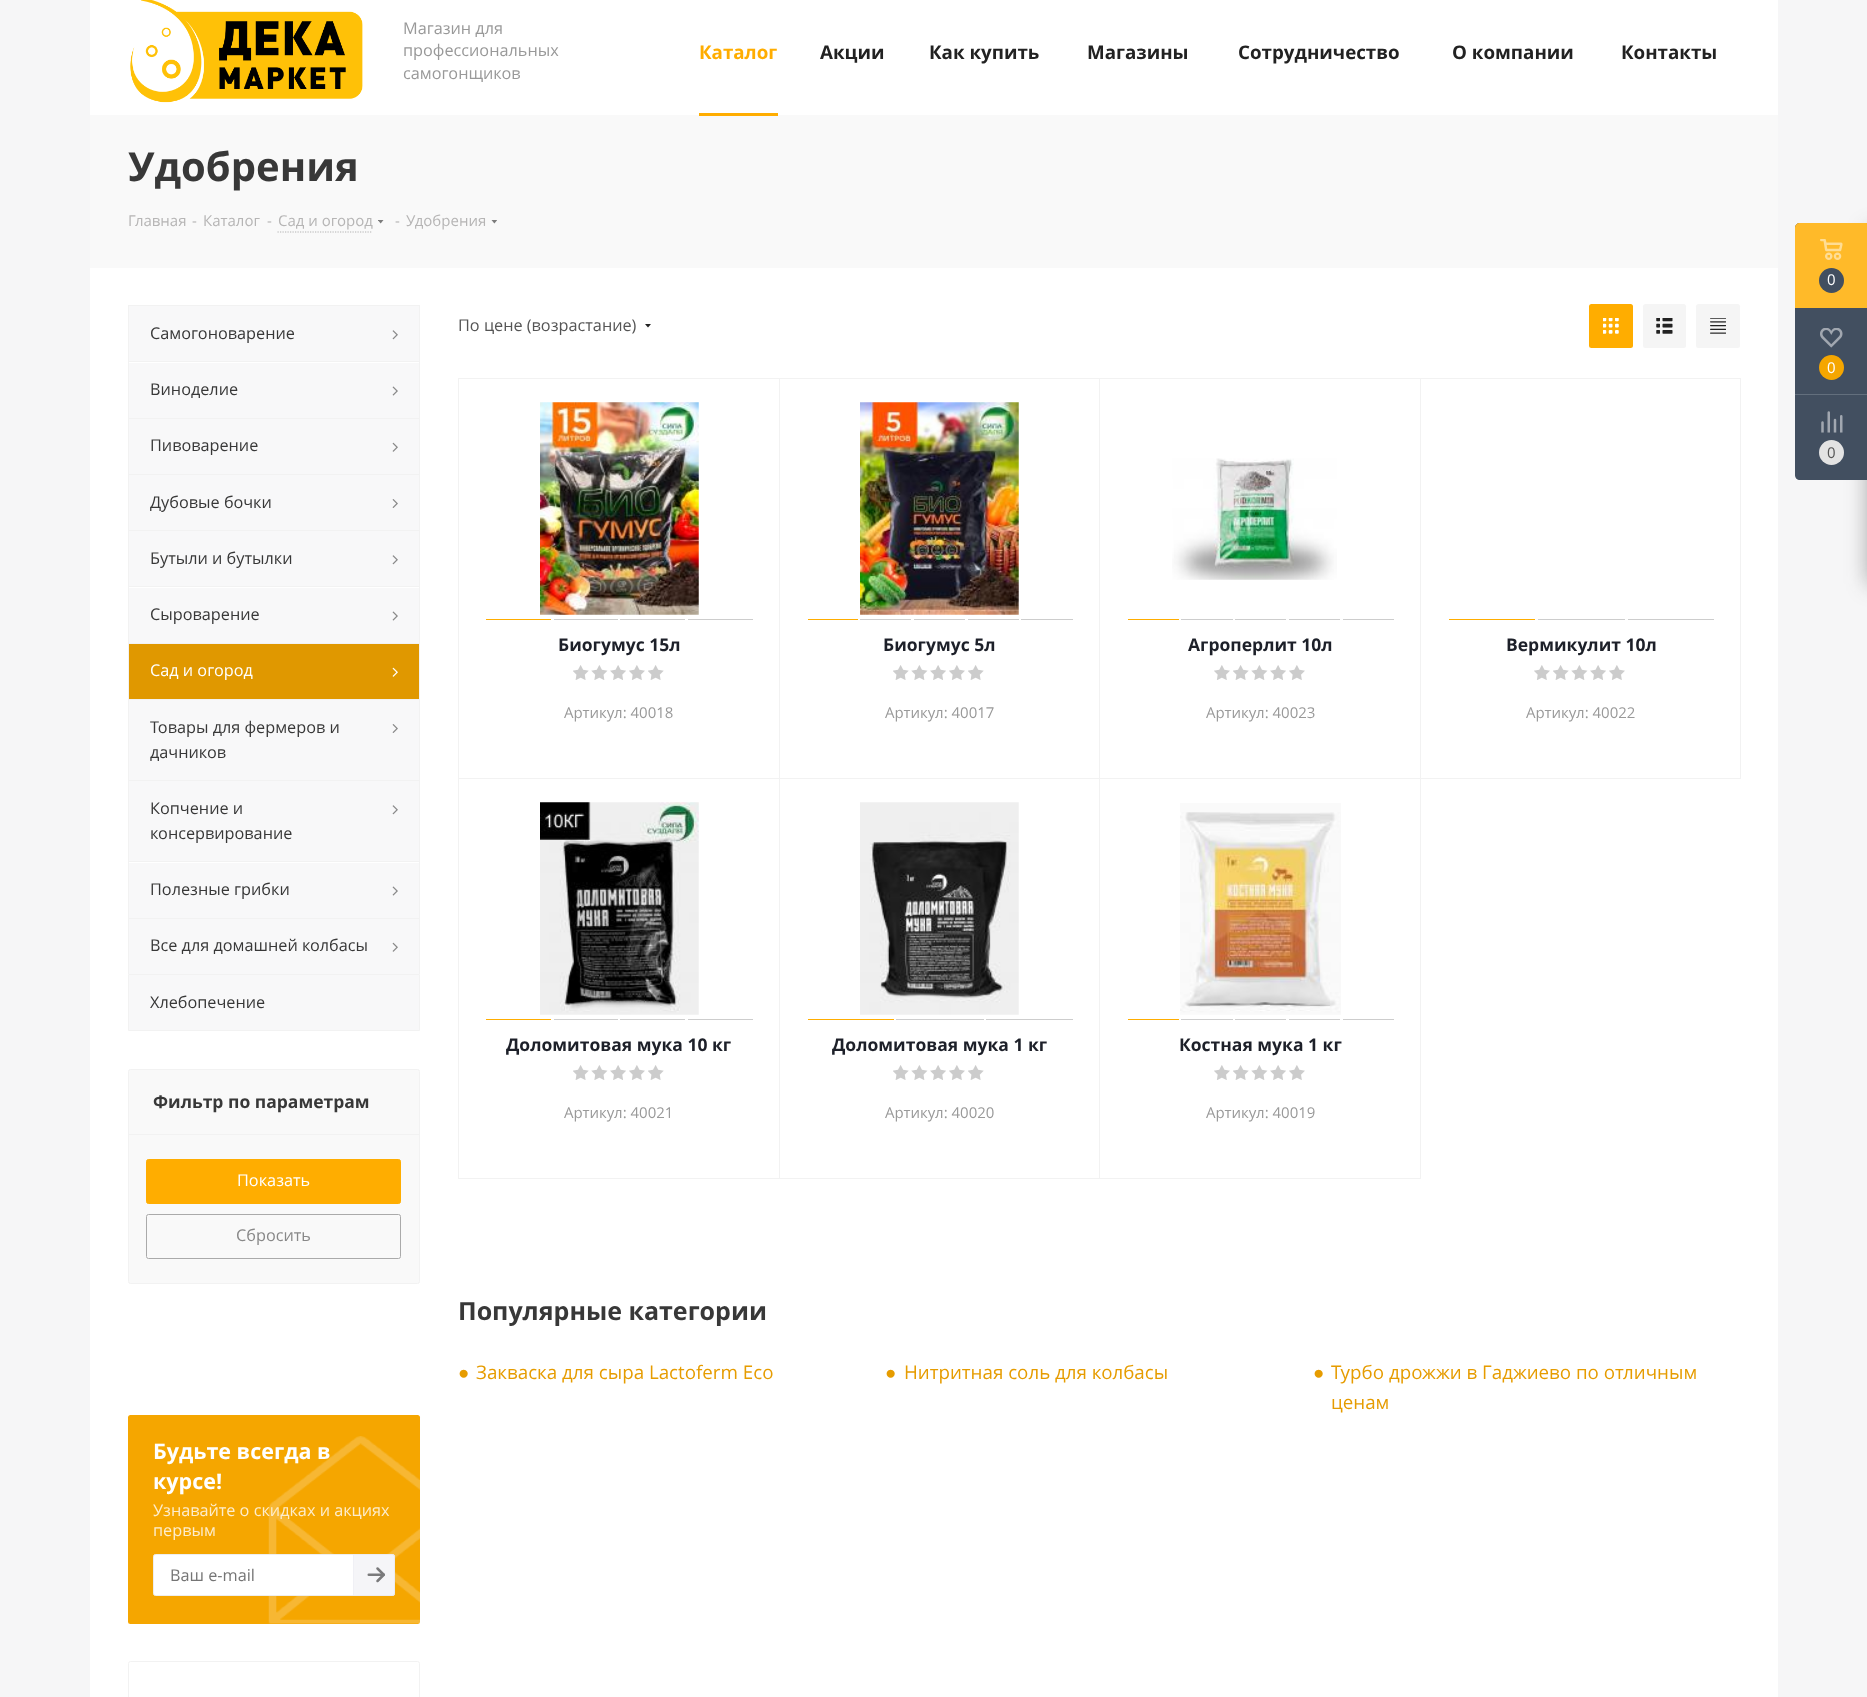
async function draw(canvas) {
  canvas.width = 1867
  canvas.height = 1697
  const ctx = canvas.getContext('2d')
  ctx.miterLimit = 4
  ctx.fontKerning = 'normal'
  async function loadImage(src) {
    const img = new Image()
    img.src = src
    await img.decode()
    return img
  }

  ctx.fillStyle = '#f6f6f7'
  ctx.fillRect(0, 0, 1867, 1697)
  ctx.fillStyle = '#fff'
  ctx.fillRect(90, 0, 1688, 115)
  ctx.drawImage(await loadImage('image0.png'), 130, 0, 233, 103)
  ctx.font = '16.25px Open Sans'
  ctx.fillStyle = '#999'
  ctx.fillText('Магазин для', 403, 34)
  ctx.fillText('профессиональных', 403, 56)
  ctx.fillText('самогонщиков', 403, 79)
  ctx.font = 'bold 18.75px Open Sans'
  ctx.fillStyle = '#ffad00'
  ctx.fillText('Каталог', 699, 59)
  ctx.fillStyle = '#f9f9f9'
  ctx.fillRect(90, 115, 1688, 153)
  ctx.fillStyle = '#ffad00'
  ctx.fillRect(699, 113, 79, 3)
  ctx.fillStyle = '#222'
  ctx.fillText('Акции', 820, 59)
  ctx.fillText('Как купить', 929, 59)
  ctx.fillText('Магазины', 1087, 59)
  ctx.fillText('Сотрудничество', 1238, 59)
  ctx.fillText('О компании', 1452, 59)
  ctx.fillText('Контакты', 1621, 59)
  ctx.fillStyle = '#fff'
  ctx.fillRect(90, 268, 1688, 1429)
  ctx.font = 'bold 40px Open Sans'
  ctx.fillStyle = '#383838'
  ctx.fillText('Удобрения', 128, 181)
  ctx.font = '15px Open Sans'
  ctx.fillStyle = '#b6b5b5'
  ctx.fillText('Главная', 128, 226)
  ctx.fillText('-', 192, 226)
  ctx.fillText('Каталог', 203, 226)
  ctx.fillText('-', 267, 226)
  ctx.fillText('Сад и огород', 278, 226)
  ctx.beginPath()
  ctx.moveTo(277.5, 232)
  ctx.lineTo(372.5, 232)
  ctx.strokeStyle = '#b4b4b4'
  ctx.lineWidth = 1.2
  ctx.setLineDash([1.25, 1.25])
  ctx.stroke()
  ctx.drawImage(await loadImage('image1.png'), 378, 220, 6, 4)
  ctx.fillText('-', 395, 226)
  ctx.fillText('Удобрения', 406, 226)
  ctx.drawImage(await loadImage('image2.png'), 491, 220, 6, 4)
  ctx.fillStyle = '#f8f8f9'
  ctx.fillRect(129, 306, 290, 55)
  ctx.fillStyle = '#f2f2f2'
  ctx.fillRect(128, 305, 292, 1)
  ctx.fillRect(419, 305, 1, 56)
  ctx.fillRect(128, 305, 1, 56)
  ctx.font = '16.25px Open Sans'
  ctx.fillStyle = '#383838'
  ctx.fillText('Самогоноварение', 150, 339)
  ctx.drawImage(await loadImage('image3.png'), 392, 330, 6, 10)
  ctx.fillStyle = '#f8f8f9'
  ctx.fillRect(129, 363, 290, 55)
  ctx.fillStyle = '#f2f2f2'
  ctx.fillRect(128, 361, 292, 1)
  ctx.fillRect(419, 361, 1, 57)
  ctx.fillRect(128, 361, 1, 57)
  ctx.fillStyle = '#383838'
  ctx.fillText('Виноделие', 150, 395)
  ctx.drawImage(await loadImage('image4.png'), 392, 386, 6, 10)
  ctx.fillStyle = '#f8f8f9'
  ctx.fillRect(129, 419, 290, 55)
  ctx.fillStyle = '#f2f2f2'
  ctx.fillRect(128, 418, 292, 1)
  ctx.fillRect(419, 418, 1, 56)
  ctx.fillRect(128, 418, 1, 56)
  ctx.fillStyle = '#383838'
  ctx.fillText('Пивоварение', 150, 451)
  ctx.drawImage(await loadImage('image5.png'), 392, 442, 6, 10)
  ctx.fillStyle = '#f8f8f9'
  ctx.fillRect(129, 475, 290, 55)
  ctx.fillStyle = '#f2f2f2'
  ctx.fillRect(128, 474, 292, 1)
  ctx.fillRect(419, 474, 1, 56)
  ctx.fillRect(128, 474, 1, 56)
  ctx.fillStyle = '#383838'
  ctx.fillText('Дубовые бочки', 150, 508)
  ctx.drawImage(await loadImage('image6.png'), 392, 499, 6, 9)
  ctx.fillStyle = '#f8f8f9'
  ctx.fillRect(129, 531, 290, 55)
  ctx.fillStyle = '#f2f2f2'
  ctx.fillRect(128, 530, 292, 1)
  ctx.fillRect(419, 530, 1, 56)
  ctx.fillRect(128, 530, 1, 56)
  ctx.fillStyle = '#383838'
  ctx.fillText('Бутыли и бутылки', 150, 564)
  ctx.drawImage(await loadImage('image3.png'), 392, 555, 6, 10)
  ctx.fillStyle = '#f8f8f9'
  ctx.fillRect(129, 588, 290, 55)
  ctx.fillStyle = '#f2f2f2'
  ctx.fillRect(128, 586, 292, 1)
  ctx.fillRect(419, 586, 1, 57)
  ctx.fillRect(128, 586, 1, 57)
  ctx.fillStyle = '#383838'
  ctx.fillText('Сыроварение', 150, 620)
  ctx.drawImage(await loadImage('image4.png'), 392, 611, 6, 10)
  ctx.fillStyle = '#e09800'
  ctx.fillRect(129, 644, 290, 55)
  ctx.fillStyle = '#f2f2f2'
  ctx.fillRect(128, 643, 292, 1)
  ctx.fillRect(419, 643, 1, 56)
  ctx.fillRect(128, 643, 1, 56)
  ctx.fillStyle = '#fff'
  ctx.fillText('Сад и огород', 150, 676)
  ctx.drawImage(await loadImage('image7.png'), 392, 667, 6, 10)
  ctx.fillStyle = '#f8f8f9'
  ctx.fillRect(129, 700, 290, 80)
  ctx.fillStyle = '#f2f2f2'
  ctx.fillRect(128, 699, 292, 1)
  ctx.fillRect(419, 699, 1, 81)
  ctx.fillRect(128, 699, 1, 81)
  ctx.fillStyle = '#383838'
  ctx.fillText('Товары для фермеров и', 150, 733)
  ctx.drawImage(await loadImage('image6.png'), 392, 724, 6, 9)
  ctx.fillText('дачников', 150, 758)
  ctx.fillStyle = '#f8f8f9'
  ctx.fillRect(129, 781, 290, 80)
  ctx.fillStyle = '#f2f2f2'
  ctx.fillRect(128, 780, 292, 1)
  ctx.fillRect(419, 780, 1, 81)
  ctx.fillRect(128, 780, 1, 81)
  ctx.fillStyle = '#383838'
  ctx.fillText('Копчение и', 150, 814)
  ctx.drawImage(await loadImage('image3.png'), 392, 805, 6, 10)
  ctx.fillText('консервирование', 150, 839)
  ctx.fillStyle = '#f8f8f9'
  ctx.fillRect(129, 863, 290, 55)
  ctx.fillStyle = '#f2f2f2'
  ctx.fillRect(128, 861, 292, 1)
  ctx.fillRect(419, 861, 1, 57)
  ctx.fillRect(128, 861, 1, 57)
  ctx.fillStyle = '#383838'
  ctx.fillText('Полезные грибки', 150, 895)
  ctx.drawImage(await loadImage('image4.png'), 392, 886, 6, 10)
  ctx.fillStyle = '#f8f8f9'
  ctx.fillRect(129, 919, 290, 55)
  ctx.fillStyle = '#f2f2f2'
  ctx.fillRect(128, 918, 292, 1)
  ctx.fillRect(419, 918, 1, 56)
  ctx.fillRect(128, 918, 1, 56)
  ctx.fillStyle = '#383838'
  ctx.fillText('Все для домашней колбасы', 150, 951)
  ctx.drawImage(await loadImage('image5.png'), 392, 942, 6, 10)
  ctx.fillStyle = '#f8f8f9'
  ctx.beginPath()
  ctx.rect(128.5, 974.5, 291, 56)
  ctx.fill()
  ctx.strokeStyle = '#f2f2f2'
  ctx.lineWidth = 1
  ctx.setLineDash([])
  ctx.stroke()
  ctx.fillStyle = '#383838'
  ctx.fillText('Хлебопечение', 150, 1008)
  ctx.fillStyle = '#f9f9f9'
  ctx.beginPath()
  ctx.roundRect(128.5, 1069.5, 291, 214, 2)
  ctx.fill()
  ctx.stroke()
  ctx.fillStyle = '#f2f2f2'
  ctx.fillRect(129, 1134, 290, 1)
  ctx.font = 'bold 17.5px Open Sans'
  ctx.fillStyle = '#383838'
  ctx.fillText('Фильтр по параметрам', 153, 1108)
  ctx.fillStyle = '#ffad00'
  ctx.beginPath()
  ctx.roundRect(146.5, 1159.5, 254, 44, 2)
  ctx.fill()
  ctx.strokeStyle = '#ffad00'
  ctx.stroke()
  ctx.font = '16.25px Open Sans'
  ctx.fillStyle = '#fff'
  ctx.fillText('Показать', 237, 1186)
  ctx.beginPath()
  ctx.roundRect(146.5, 1214.5, 254, 44, 2)
  ctx.strokeStyle = '#aaa'
  ctx.stroke()
  ctx.fillStyle = '#888'
  ctx.fillText('Сбросить', 236, 1241)
  ctx.fillStyle = '#f5a600'
  ctx.beginPath()
  ctx.roundRect(128, 1415, 292, 209, 2.5)
  ctx.fill()
  ctx.font = 'bold 21.5px Open Sans'
  ctx.fillStyle = '#fff'
  ctx.fillText('Будьте всегда в', 153, 1459)
  ctx.drawImage(await loadImage('image8.png'), 268, 1436, 152, 188)
  ctx.fillText('курсе!', 153, 1489)
  ctx.font = '16.25px Open Sans'
  ctx.fillStyle = '#fdedcd'
  ctx.fillText('Узнавайте о скидках и акциях', 153, 1516)
  ctx.fillText('первым', 153, 1536)
  ctx.fillStyle = '#fff'
  ctx.beginPath()
  ctx.roundRect(153.5, 1554.5, 241, 41, 2)
  ctx.fill()
  ctx.strokeStyle = '#eee'
  ctx.stroke()
  ctx.fillStyle = '#757575'
  ctx.fillText('Ваш e-mail', 170, 1581)
  ctx.fillStyle = '#ececf280'
  ctx.beginPath()
  ctx.roundRect(353, 1554, 42, 42, [0, 2.5, 2.5, 0])
  ctx.fill()
  ctx.drawImage(await loadImage('image9.png'), 367, 1567, 18, 16)
  ctx.beginPath()
  ctx.roundRect(353.5, 1554.5, 41, 41, [0, 2, 2, 0])
  ctx.strokeStyle = '#ececf280'
  ctx.stroke()
  ctx.beginPath()
  ctx.roundRect(128.5, 1661.5, 291, 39, 2)
  ctx.strokeStyle = '#f2f2f2'
  ctx.stroke()
  ctx.fillStyle = '#555'
  ctx.fillText('По цене (возрастание)', 458, 331)
  ctx.fillStyle = '#222'
  ctx.beginPath()
  ctx.moveTo(645, 324)
  ctx.lineTo(651, 324)
  ctx.lineTo(648, 327.5)
  ctx.closePath()
  ctx.fill('evenodd')
  ctx.fillStyle = '#ffad00'
  ctx.beginPath()
  ctx.roundRect(1589, 304, 44, 44, 2.5)
  ctx.fill()
  ctx.drawImage(await loadImage('image10.png'), 1603, 318, 16, 16)
  ctx.fillStyle = '#f5f5f5'
  ctx.beginPath()
  ctx.roundRect(1643, 304, 43, 44, 2.5)
  ctx.fill()
  ctx.drawImage(await loadImage('image11.png'), 1656, 318, 17, 16)
  ctx.beginPath()
  ctx.roundRect(1696, 304, 44, 44, 2.5)
  ctx.fill()
  ctx.drawImage(await loadImage('image12.png'), 1710, 318, 16, 16)
  ctx.strokeRect(458.5, 378.5, 321, 400)
  ctx.drawImage(await loadImage('image13.png'), 540, 402, 159, 213)
  ctx.fillStyle = '#ffad00'
  ctx.fillRect(486, 619, 65, 1)
  ctx.fillStyle = '#cdcdcd'
  ctx.fillRect(554, 619, 64, 1)
  ctx.fillRect(620, 619, 65, 1)
  ctx.fillRect(688, 619, 65, 1)
  ctx.font = 'bold 17.5px Open Sans'
  ctx.fillStyle = '#1d2029'
  ctx.fillText('Биогумус 15л', 558, 651)
  ctx.drawImage(await loadImage('image14.png'), 573, 665, 16, 15)
  ctx.drawImage(await loadImage('image15.png'), 591, 665, 17, 15)
  ctx.drawImage(await loadImage('image16.png'), 610, 665, 16, 15)
  ctx.drawImage(await loadImage('image17.png'), 629, 665, 16, 15)
  ctx.drawImage(await loadImage('image14.png'), 648, 665, 16, 15)
  ctx.font = '15px Open Sans'
  ctx.fillStyle = '#999'
  ctx.fillText('Артикул: 40018', 564, 718)
  ctx.strokeRect(779.5, 378.5, 320, 400)
  ctx.drawImage(await loadImage('image18.png'), 860, 402, 159, 213)
  ctx.fillStyle = '#ffad00'
  ctx.fillRect(808, 619, 50, 1)
  ctx.fillStyle = '#cdcdcd'
  ctx.fillRect(860, 619, 51, 1)
  ctx.fillRect(914, 619, 51, 1)
  ctx.fillRect(968, 619, 51, 1)
  ctx.fillRect(1021, 619, 52, 1)
  ctx.font = 'bold 17.5px Open Sans'
  ctx.fillStyle = '#1d2029'
  ctx.fillText('Биогумус 5л', 883, 651)
  ctx.drawImage(await loadImage('image14.png'), 893, 665, 16, 15)
  ctx.drawImage(await loadImage('image15.png'), 911, 665, 17, 15)
  ctx.drawImage(await loadImage('image16.png'), 930, 665, 16, 15)
  ctx.drawImage(await loadImage('image17.png'), 949, 665, 16, 15)
  ctx.drawImage(await loadImage('image14.png'), 968, 665, 16, 15)
  ctx.font = '15px Open Sans'
  ctx.fillStyle = '#999'
  ctx.fillText('Артикул: 40017', 885, 718)
  ctx.strokeRect(1099.5, 378.5, 321, 400)
  ctx.drawImage(await loadImage('image19.png'), 1172, 458, 165, 122)
  ctx.fillStyle = '#ffad00'
  ctx.fillRect(1128, 619, 51, 1)
  ctx.fillStyle = '#cdcdcd'
  ctx.fillRect(1181, 619, 52, 1)
  ctx.fillRect(1235, 619, 51, 1)
  ctx.fillRect(1289, 619, 51, 1)
  ctx.fillRect(1343, 619, 51, 1)
  ctx.font = 'bold 17.5px Open Sans'
  ctx.fillStyle = '#1d2029'
  ctx.fillText('Агроперлит 10л', 1188, 651)
  ctx.drawImage(await loadImage('image17.png'), 1214, 665, 16, 15)
  ctx.drawImage(await loadImage('image14.png'), 1233, 665, 16, 15)
  ctx.drawImage(await loadImage('image15.png'), 1251, 665, 17, 15)
  ctx.drawImage(await loadImage('image16.png'), 1270, 665, 16, 15)
  ctx.drawImage(await loadImage('image17.png'), 1289, 665, 16, 15)
  ctx.font = '15px Open Sans'
  ctx.fillStyle = '#999'
  ctx.fillText('Артикул: 40023', 1206, 718)
  ctx.strokeRect(1420.5, 378.5, 320, 400)
  ctx.fillStyle = '#ffad00'
  ctx.fillRect(1449, 619, 86, 1)
  ctx.fillStyle = '#cdcdcd'
  ctx.fillRect(1538, 619, 87, 1)
  ctx.fillRect(1628, 619, 86, 1)
  ctx.font = 'bold 17.5px Open Sans'
  ctx.fillStyle = '#1d2029'
  ctx.fillText('Вермикулит 10л', 1506, 651)
  ctx.drawImage(await loadImage('image17.png'), 1534, 665, 16, 15)
  ctx.drawImage(await loadImage('image14.png'), 1553, 665, 16, 15)
  ctx.drawImage(await loadImage('image15.png'), 1571, 665, 17, 15)
  ctx.drawImage(await loadImage('image16.png'), 1590, 665, 16, 15)
  ctx.drawImage(await loadImage('image17.png'), 1609, 665, 16, 15)
  ctx.font = '15px Open Sans'
  ctx.fillStyle = '#999'
  ctx.fillText('Артикул: 40022', 1526, 718)
  ctx.strokeRect(458.5, 778.5, 321, 400)
  ctx.drawImage(await loadImage('image20.png'), 540, 802, 159, 213)
  ctx.fillStyle = '#ffad00'
  ctx.fillRect(486, 1019, 65, 1)
  ctx.fillStyle = '#cdcdcd'
  ctx.fillRect(554, 1019, 64, 1)
  ctx.fillRect(620, 1019, 65, 1)
  ctx.fillRect(688, 1019, 65, 1)
  ctx.font = 'bold 17.5px Open Sans'
  ctx.fillStyle = '#1d2029'
  ctx.fillText('Доломитовая мука 10 кг', 506, 1051)
  ctx.drawImage(await loadImage('image14.png'), 573, 1065, 16, 15)
  ctx.drawImage(await loadImage('image15.png'), 591, 1065, 17, 15)
  ctx.drawImage(await loadImage('image16.png'), 610, 1065, 16, 15)
  ctx.drawImage(await loadImage('image17.png'), 629, 1065, 16, 15)
  ctx.drawImage(await loadImage('image14.png'), 648, 1065, 16, 15)
  ctx.font = '15px Open Sans'
  ctx.fillStyle = '#999'
  ctx.fillText('Артикул: 40021', 564, 1118)
  ctx.strokeRect(779.5, 778.5, 320, 400)
  ctx.drawImage(await loadImage('image21.png'), 860, 802, 159, 213)
  ctx.fillStyle = '#ffad00'
  ctx.fillRect(808, 1019, 86, 1)
  ctx.fillStyle = '#cdcdcd'
  ctx.fillRect(896, 1019, 88, 1)
  ctx.fillRect(986, 1019, 87, 1)
  ctx.font = 'bold 17.5px Open Sans'
  ctx.fillStyle = '#1d2029'
  ctx.fillText('Доломитовая мука 1 кг', 832, 1051)
  ctx.drawImage(await loadImage('image14.png'), 893, 1065, 16, 15)
  ctx.drawImage(await loadImage('image15.png'), 911, 1065, 17, 15)
  ctx.drawImage(await loadImage('image16.png'), 930, 1065, 16, 15)
  ctx.drawImage(await loadImage('image17.png'), 949, 1065, 16, 15)
  ctx.drawImage(await loadImage('image14.png'), 968, 1065, 16, 15)
  ctx.font = '15px Open Sans'
  ctx.fillStyle = '#999'
  ctx.fillText('Артикул: 40020', 885, 1118)
  ctx.strokeRect(1099.5, 778.5, 321, 400)
  ctx.drawImage(await loadImage('image22.png'), 1180, 803, 161, 212)
  ctx.fillStyle = '#ffad00'
  ctx.fillRect(1128, 1019, 51, 1)
  ctx.fillStyle = '#cdcdcd'
  ctx.fillRect(1181, 1019, 52, 1)
  ctx.fillRect(1235, 1019, 51, 1)
  ctx.fillRect(1289, 1019, 51, 1)
  ctx.fillRect(1343, 1019, 51, 1)
  ctx.font = 'bold 17.5px Open Sans'
  ctx.fillStyle = '#1d2029'
  ctx.fillText('Костная мука 1 кг', 1179, 1051)
  ctx.drawImage(await loadImage('image17.png'), 1214, 1065, 16, 15)
  ctx.drawImage(await loadImage('image14.png'), 1233, 1065, 16, 15)
  ctx.drawImage(await loadImage('image15.png'), 1251, 1065, 17, 15)
  ctx.drawImage(await loadImage('image16.png'), 1270, 1065, 16, 15)
  ctx.drawImage(await loadImage('image17.png'), 1289, 1065, 16, 15)
  ctx.font = '15px Open Sans'
  ctx.fillStyle = '#999'
  ctx.fillText('Артикул: 40019', 1206, 1118)
  ctx.font = 'bold 25px Open Sans'
  ctx.fillStyle = '#383838'
  ctx.fillText('Популярные категории', 458, 1320)
  ctx.font = '18.75px Liberation Sans'
  ctx.fillStyle = '#e69c00'
  ctx.fillText('●', 458, 1379)
  ctx.font = '18.75px Open Sans'
  ctx.fillText('Закваска для сыра Lactoferm Eсo', 476, 1379)
  ctx.font = '18.75px Liberation Sans'
  ctx.fillText('●', 885, 1379)
  ctx.font = '18.75px Open Sans'
  ctx.fillText('Нитритная соль для колбасы', 904, 1379)
  ctx.font = '18.75px Liberation Sans'
  ctx.fillText('●', 1313, 1379)
  ctx.font = '18.75px Open Sans'
  ctx.fillText('Турбо дрожжи в Гаджиево по отличным', 1331, 1379)
  ctx.fillText('ценам', 1331, 1409)
  ctx.fillStyle = '#2c2c2c66'
  ctx.filter = 'blur(11px)'
  ctx.beginPath()
  ctx.roundRect(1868, 230, 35, 354, 2.5)
  ctx.fill()
  ctx.filter = 'none'
  ctx.fillStyle = '#424f60'
  ctx.beginPath()
  ctx.moveTo(1800, 223)
  ctx.lineTo(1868, 223)
  ctx.lineTo(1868, 480)
  ctx.lineTo(1800, 480)
  ctx.bezierCurveTo(1797, 480, 1795, 478, 1795, 475)
  ctx.lineTo(1795, 228)
  ctx.bezierCurveTo(1795, 225, 1797, 223, 1800, 223)
  ctx.closePath()
  ctx.fill()
  ctx.fillStyle = '#ffba29'
  ctx.beginPath()
  ctx.moveTo(1800, 223)
  ctx.lineTo(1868, 223)
  ctx.lineTo(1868, 308)
  ctx.lineTo(1795, 308)
  ctx.lineTo(1795, 228)
  ctx.bezierCurveTo(1795, 225, 1797, 223, 1800, 223)
  ctx.closePath()
  ctx.fill()
  ctx.drawImage(await loadImage('image23.png'), 1820, 239, 23, 21)
  ctx.fillStyle = '#424f60'
  ctx.beginPath()
  ctx.arc(1831.5, 280.5, 12.5, 0, 2 * Math.PI)
  ctx.fill()
  ctx.font = '15px Open Sans'
  ctx.fillStyle = '#fff'
  ctx.fillText('0', 1827, 285)
  ctx.drawImage(await loadImage('image24.png'), 1820, 328, 23, 20)
  ctx.fillStyle = '#f5a600'
  ctx.beginPath()
  ctx.arc(1831.5, 367.5, 12.5, 0, 2 * Math.PI)
  ctx.fill()
  ctx.fillStyle = '#fff'
  ctx.fillText('0', 1827, 373)
  ctx.fillStyle = '#636f7d'
  ctx.fillRect(1795, 394, 72, 1)
  ctx.drawImage(await loadImage('image25.png'), 1821, 411, 22, 22)
  ctx.fillStyle = '#e3e3e3'
  ctx.beginPath()
  ctx.arc(1831.5, 452.5, 12.5, 0, 2 * Math.PI)
  ctx.fill()
  ctx.fillStyle = '#555'
  ctx.fillText('0', 1827, 458)
}

draw(document.querySelector('canvas'))
